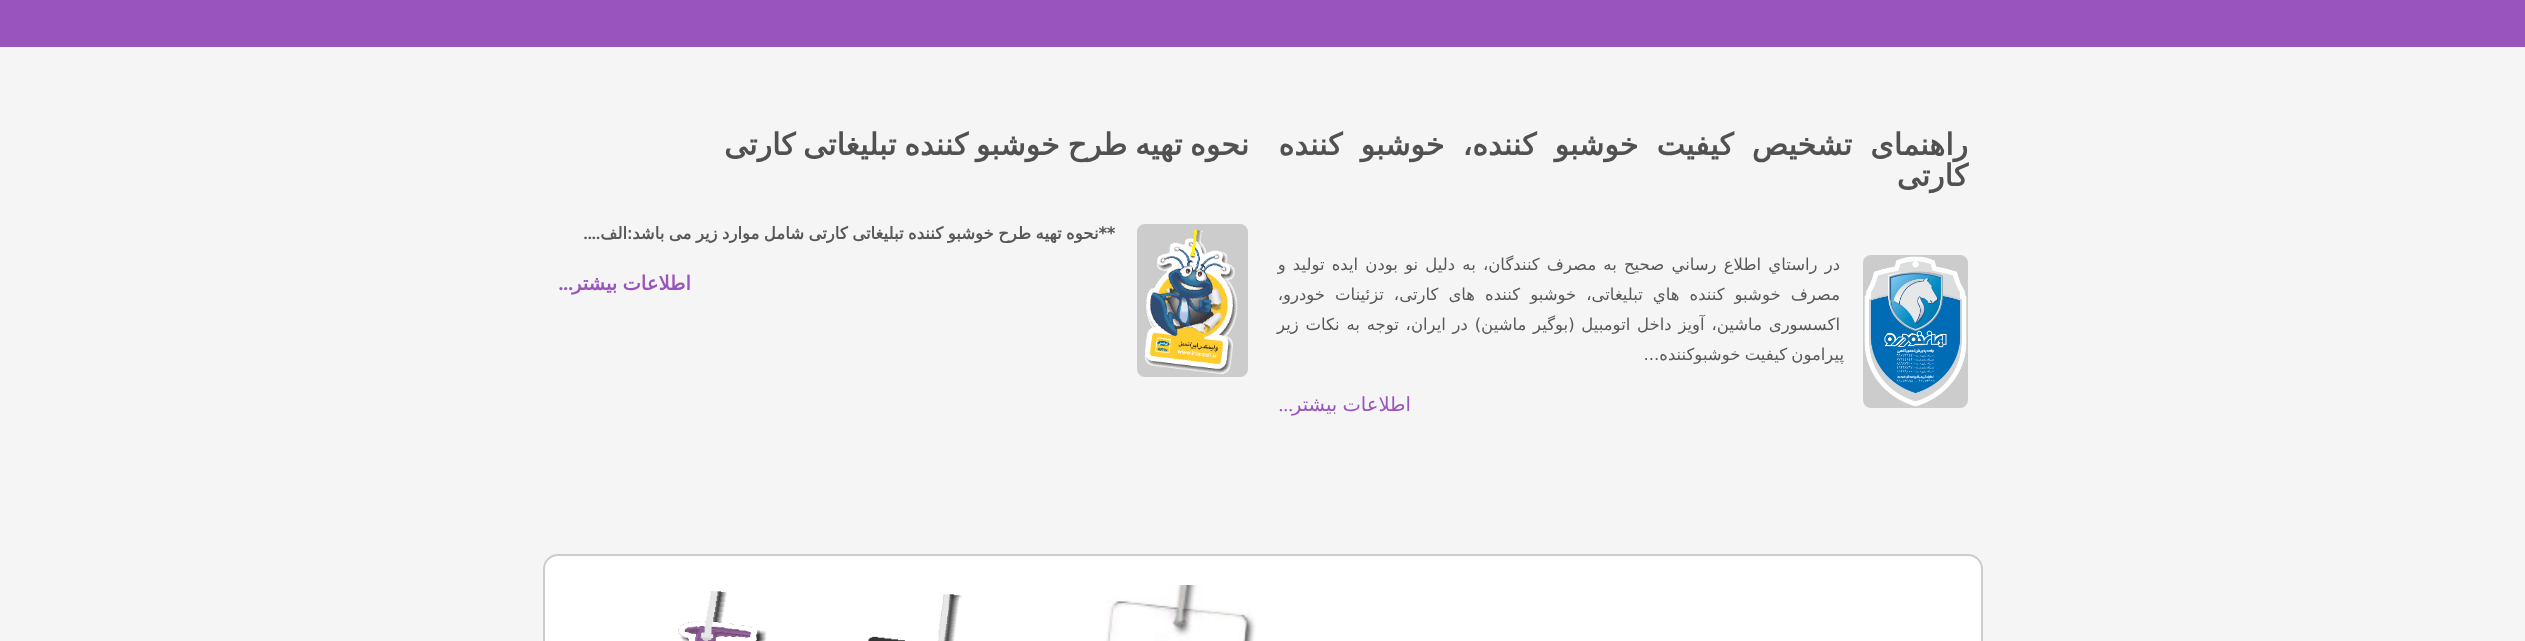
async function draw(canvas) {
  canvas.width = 2525
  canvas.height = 641
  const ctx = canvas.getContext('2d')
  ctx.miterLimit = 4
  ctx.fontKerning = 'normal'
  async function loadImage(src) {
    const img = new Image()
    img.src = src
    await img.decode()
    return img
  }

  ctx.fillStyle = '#f5f5f5'
  ctx.fillRect(0, 0, 2525, 641)
  ctx.fillStyle = '#95b'
  ctx.fillRect(0, 0, 2525, 47)
  ctx.wordSpacing = '8.75px'
  ctx.direction = 'rtl'
  ctx.font = 'bold 30px DejaVu Sans'
  ctx.fillStyle = '#515151'
  ctx.fillText('راهنمای تشخیص کیفیت خوشبو کننده، خوشبو کننده', 1968, 155)
  ctx.wordSpacing = '0px'
  ctx.fillText('کارتی', 1968, 186)
  ctx.fillStyle = '#ccc'
  ctx.beginPath()
  ctx.roundRect(1863, 255, 105, 153, 8)
  ctx.fill()
  ctx.drawImage(await loadImage('image0.png'), 1864, 256, 103, 151)
  ctx.wordSpacing = '1.9px'
  ctx.font = '16.5px DejaVu Sans'
  ctx.fillStyle = '#585858'
  ctx.fillText('در راستاي اطلاع رساني صحيح به مصرف كنندگان، به دليل نو بودن ايده توليد و', 1840, 270)
  ctx.wordSpacing = '4.75px'
  ctx.fillText('مصرف خوشبو كننده هاي تبليغاتی، خوشبو کننده های کارتی، تزئینات خودرو،', 1840, 300)
  ctx.wordSpacing = '1.5px'
  ctx.fillText('اکسسوری ماشین، آویز داخل اتومبیل (بوگیر ماشین) در ايران، توجه به نکات زیر', 1840, 330)
  ctx.wordSpacing = '-1px'
  ctx.fillText('پيرامون كيفيت خوشبوكننده...', 1844, 360)
  ctx.wordSpacing = '0px'
  ctx.font = '19.5px Liberation Serif'
  ctx.fillStyle = '#95b'
  ctx.fillText('...', 1293, 411)
  ctx.wordSpacing = '-1px'
  ctx.font = '19.5px DejaVu Sans'
  ctx.fillText('اطلاعات بیشتر', 1411, 411)
  ctx.wordSpacing = '-1.75px'
  ctx.font = 'bold 30px DejaVu Sans'
  ctx.fillStyle = '#515151'
  ctx.fillText('نحوه تهیه طرح خوشبو کننده تبلیغاتی کارتی', 1249, 155)
  ctx.fillStyle = '#ccc'
  ctx.beginPath()
  ctx.roundRect(1137, 224, 111, 153, 8)
  ctx.fill()
  ctx.drawImage(await loadImage('image1.png'), 1144, 230, 94, 145)
  ctx.wordSpacing = '-0.75px'
  ctx.font = 'bold 16.5px DejaVu Sans'
  ctx.fillStyle = '#585858'
  ctx.fillText('**نحوه تهیه طرح خوشبو کننده تبلیغاتی کارتی شامل موارد زیر می باشد:', 1115, 239)
  ctx.wordSpacing = '0px'
  ctx.fillText('الف', 627, 239)
  ctx.font = 'bold 16.5px Liberation Serif'
  ctx.fillText('....', 600, 239)
  ctx.font = 'bold 19.5px Liberation Serif'
  ctx.fillStyle = '#95b'
  ctx.fillText('...', 573, 290)
  ctx.wordSpacing = '-1px'
  ctx.font = 'bold 19.5px DejaVu Sans'
  ctx.fillText('اطلاعات بیشتر', 691, 290)
  ctx.fillStyle = '#fff'
  ctx.beginPath()
  ctx.roundRect(544, 555, 1438, 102, 14)
  ctx.fill()
  ctx.strokeStyle = '#ccc'
  ctx.lineWidth = 2
  ctx.stroke()
  ctx.drawImage(await loadImage('image2.png'), 1106, 585, 150, 56)
  ctx.drawImage(await loadImage('image3.png'), 868, 593, 95, 48)
  ctx.drawImage(await loadImage('image4.png'), 678, 591, 89, 50)
}

draw(document.querySelector('canvas'))
